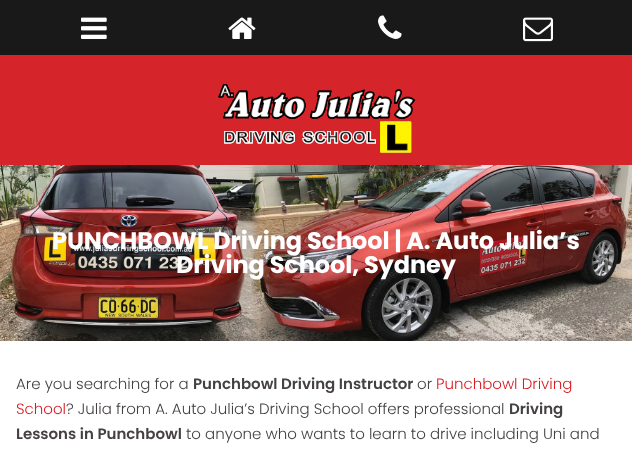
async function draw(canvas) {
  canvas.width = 632
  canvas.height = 453
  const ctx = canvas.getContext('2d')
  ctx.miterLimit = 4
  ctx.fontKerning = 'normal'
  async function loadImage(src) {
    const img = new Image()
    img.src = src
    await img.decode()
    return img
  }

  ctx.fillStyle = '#fff'
  ctx.fillRect(0, 0, 632, 453)
  ctx.fillStyle = '#191919'
  ctx.fillRect(0, 0, 632, 55)
  ctx.drawImage(await loadImage('image0.png'), 81, 17, 26, 22)
  ctx.drawImage(await loadImage('image1.png'), 228, 17, 28, 22)
  ctx.drawImage(await loadImage('image2.png'), 378, 15, 24, 24)
  ctx.drawImage(await loadImage('image3.png'), 523, 17, 30, 25)
  ctx.fillStyle = '#d5252b'
  ctx.fillRect(0, 55, 632, 110)
  ctx.drawImage(await loadImage('image4.png'), 218, 84, 197, 69)
  ctx.drawImage(await loadImage('image5.png'), 218, 84, 197, 69)
  ctx.drawImage(await loadImage('image6.png'), 218, 84, 197, 69)
  ctx.drawImage(await loadImage('image7.png'), 218, 84, 197, 69)
  ctx.drawImage(await loadImage('image8.png'), 218, 84, 197, 69)
  ctx.drawImage(await loadImage('image9.png'), 0, 165, 632, 176)
  ctx.letterSpacing = '-0.1px'
  ctx.font = 'bold 24px Poppins'
  ctx.fillStyle = '#fff'
  ctx.fillText('PUNCHBOWL Driving School | A. Auto Julia’s', 52, 249)
  ctx.fillText('Driving School, Sydney', 176, 273)
  ctx.letterSpacing = '0px'
  ctx.font = '300 15px Poppins'
  ctx.fillStyle = '#454141'
  ctx.fillText('Are you searching for a', 16, 389)
  ctx.font = '600 15px Poppins'
  ctx.fillText('Punchbowl Driving Instructor', 193, 389)
  ctx.font = '300 15px Poppins'
  ctx.fillText('or', 417, 389)
  ctx.fillStyle = '#db1920'
  ctx.fillText('Punchbowl Driving', 436, 389)
  ctx.fillText('School', 16, 414)
  ctx.fillStyle = '#454141'
  ctx.fillText('? Julia from A. Auto Julia’s Driving School offers professional', 66, 414)
  ctx.font = '600 15px Poppins'
  ctx.fillText('Driving', 509, 414)
  ctx.fillText('Lessons in Punchbowl', 16, 439)
  ctx.font = '300 15px Poppins'
  ctx.fillText('to anyone who wants to learn to drive including Uni and', 186, 439)
}

draw(document.querySelector('canvas'))
